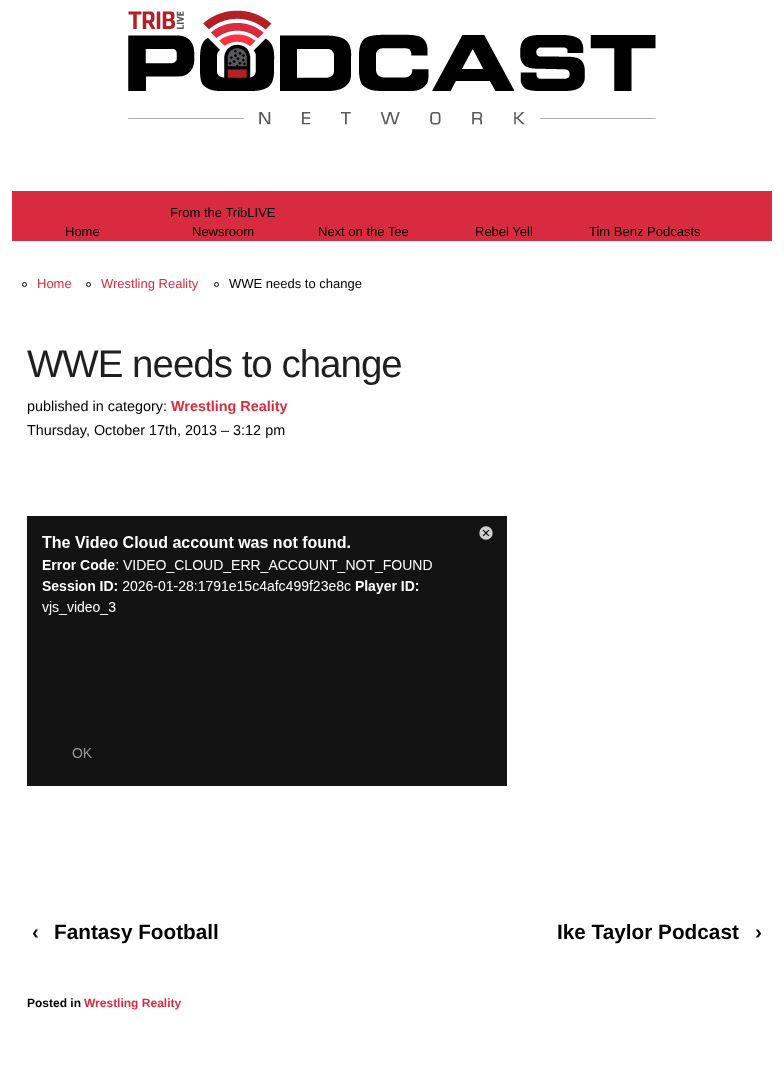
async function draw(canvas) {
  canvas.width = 784
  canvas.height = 1085
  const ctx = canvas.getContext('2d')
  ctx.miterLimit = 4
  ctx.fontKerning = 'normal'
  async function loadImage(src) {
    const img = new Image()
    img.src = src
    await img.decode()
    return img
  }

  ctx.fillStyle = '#fff'
  ctx.fillRect(0, 0, 784, 1085)
  ctx.drawImage(await loadImage('image0.png'), 128, 10, 528, 115)
  ctx.fillStyle = '#d82b3f'
  ctx.fillRect(12, 191, 760, 50)
  ctx.font = '13px Liberation Sans'
  ctx.fillStyle = '#000'
  ctx.fillText('Home', 65, 236)
  ctx.fillText('From the TribLIVE', 170, 217)
  ctx.fillText('Newsroom', 192, 236)
  ctx.fillText('Next on the Tee', 318, 236)
  ctx.fillText('Rebel Yell', 475, 236)
  ctx.fillText('Tim Benz Podcasts', 589, 236)
  ctx.beginPath()
  ctx.arc(24.5, 284.5, 2, 0, 2 * Math.PI)
  ctx.strokeStyle = '#000'
  ctx.stroke()
  ctx.fillStyle = '#d82b3f'
  ctx.fillText('Home', 37, 288)
  ctx.beginPath()
  ctx.arc(88.5, 284.5, 2, 0, 2 * Math.PI)
  ctx.stroke()
  ctx.fillText('Wrestling Reality', 101, 288)
  ctx.beginPath()
  ctx.arc(216.5, 284.5, 2, 0, 2 * Math.PI)
  ctx.stroke()
  ctx.fillStyle = '#000'
  ctx.fillText('WWE needs to change', 229, 288)
  ctx.letterSpacing = '-1px'
  ctx.font = '38.5px Liberation Sans'
  ctx.fillStyle = '#1f1f1f'
  ctx.fillText('WWE needs to change', 27, 377)
  ctx.letterSpacing = '0px'
  ctx.font = '14.4px Liberation Sans'
  ctx.fillStyle = '#000'
  ctx.fillText('published in category:', 27, 411)
  ctx.font = 'bold 14.4px Liberation Sans'
  ctx.fillStyle = '#d82b3f'
  ctx.fillText('Wrestling Reality', 171, 411)
  ctx.font = '14.4px Liberation Sans'
  ctx.fillStyle = '#000'
  ctx.fillText('Thursday, October 17th, 2013 – 3:12 pm', 27, 435)
  ctx.drawImage(await loadImage('image1.png'), 27, 516, 480, 270)
  ctx.font = 'bold 20.75px Liberation Sans'
  ctx.fillStyle = '#111'
  ctx.fillText('‹', 32, 939)
  ctx.fillStyle = '#000'
  ctx.fillText('Fantasy Football', 54, 939)
  ctx.fillText('Ike Taylor Podcast', 557, 939)
  ctx.fillStyle = '#111'
  ctx.fillText('›', 755, 939)
  ctx.font = 'bold 12px Liberation Sans'
  ctx.fillStyle = '#000'
  ctx.fillText('Posted in', 27, 1007)
  ctx.fillStyle = '#d82b3f'
  ctx.fillText('Wrestling Reality', 84, 1007)
}

draw(document.querySelector('canvas'))
